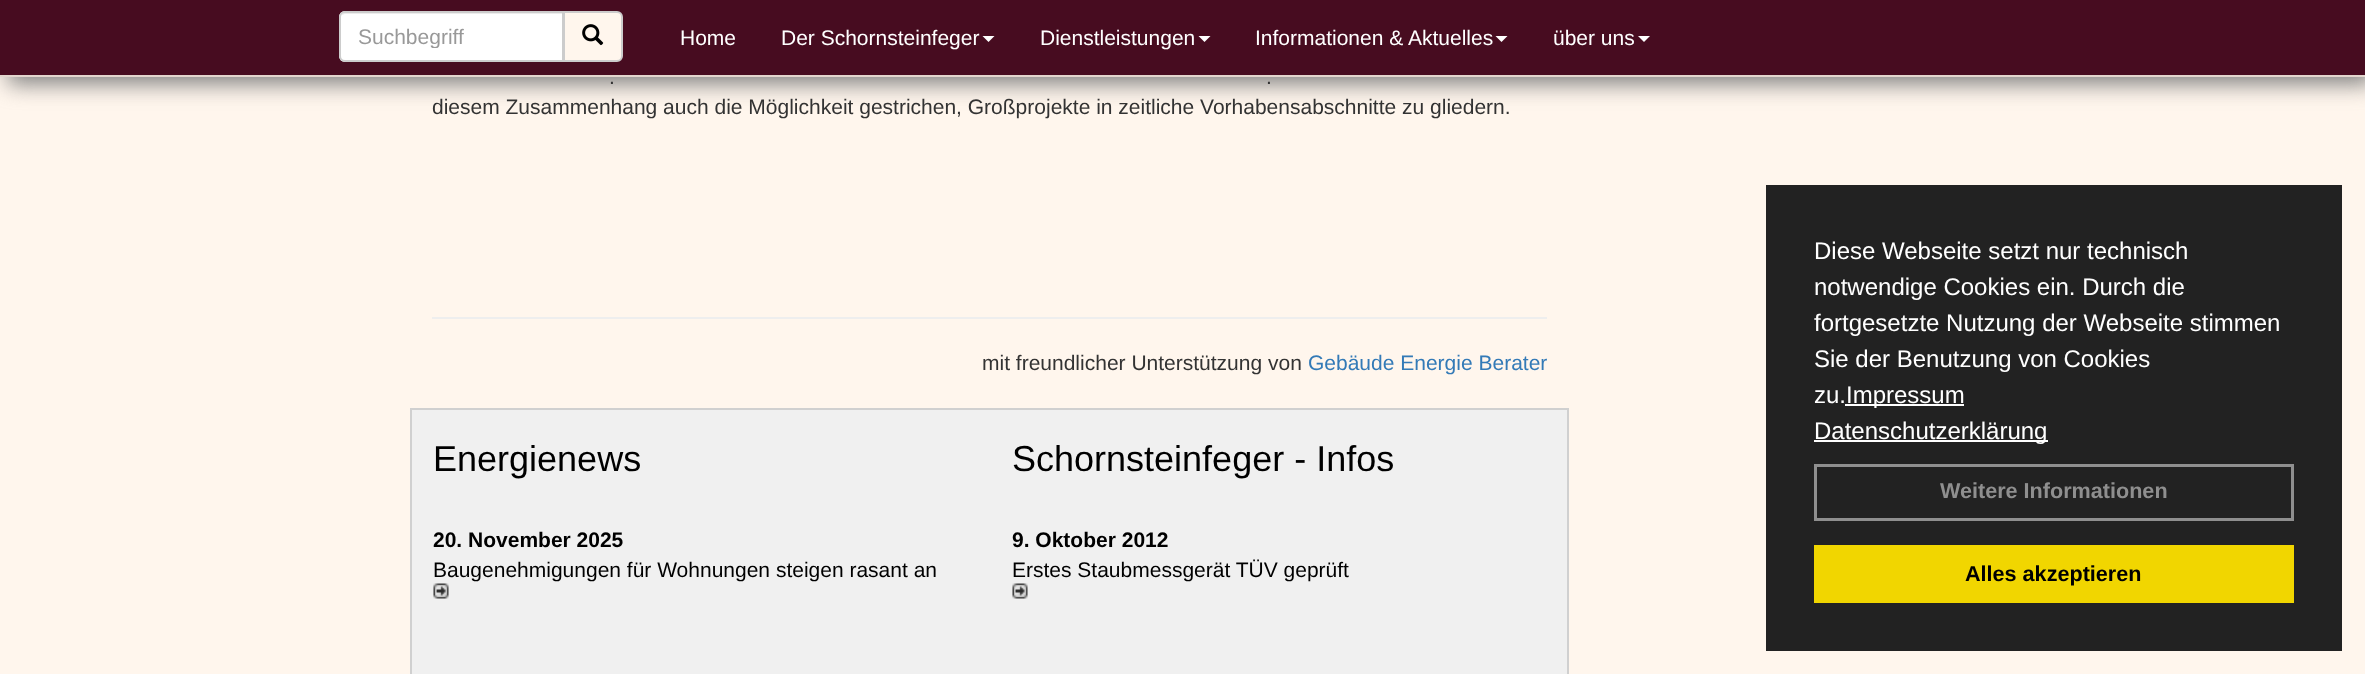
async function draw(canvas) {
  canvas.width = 2365
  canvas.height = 674
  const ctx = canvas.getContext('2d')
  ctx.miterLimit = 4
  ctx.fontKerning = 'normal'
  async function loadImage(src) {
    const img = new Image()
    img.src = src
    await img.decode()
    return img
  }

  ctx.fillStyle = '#fff6ed'
  ctx.fillRect(0, 0, 2365, 674)
  ctx.fillStyle = '#808080'
  ctx.filter = 'blur(11px)'
  ctx.beginPath()
  ctx.rect(8, 8, 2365, 76)
  ctx.fill()
  ctx.filter = 'none'
  ctx.fillStyle = '#470c20'
  ctx.fillRect(0, 0, 2365, 75)
  ctx.fillStyle = '#e3d6ce'
  ctx.fillRect(0, 75, 2365, 2)
  ctx.fillStyle = '#fff'
  ctx.beginPath()
  ctx.roundRect(339, 11, 225, 51, [6, 0, 0, 6])
  ctx.fill()
  ctx.fillStyle = '#ececec'
  ctx.beginPath()
  ctx.moveTo(345, 14)
  ctx.lineTo(562, 14)
  ctx.lineTo(562, 60)
  ctx.lineTo(563, 60)
  ctx.lineTo(563, 12)
  ctx.lineTo(346, 12)
  ctx.bezierCurveTo(344, 12, 342, 14, 341, 16)
  ctx.bezierCurveTo(342, 15, 344, 14, 345, 14)
  ctx.closePath()
  ctx.fill()
  ctx.beginPath()
  ctx.roundRect(340, 12, 223, 49, [5, 0, 0, 5])
  ctx.strokeStyle = '#ccc'
  ctx.lineWidth = 2
  ctx.stroke()
  ctx.save()
  ctx.beginPath()
  ctx.rect(359, 24, 186, 24)
  ctx.clip()
  ctx.font = '21px Liberation Sans'
  ctx.fillStyle = '#999'
  ctx.fillText('Suchbegriff', 358, 44)
  ctx.restore()
  ctx.fillStyle = '#fff6ed'
  ctx.beginPath()
  ctx.roundRect(564, 12, 58, 49, [0, 5, 5, 0])
  ctx.fill()
  ctx.stroke()
  ctx.drawImage(await loadImage('image0.png'), 582, 24, 22, 22)
  ctx.font = '21px Liberation Sans'
  ctx.fillStyle = '#fff'
  ctx.fillText('Home', 680, 45)
  ctx.fillText('Der Schornsteinfeger', 781, 45)
  ctx.beginPath()
  ctx.moveTo(982.5, 36)
  ctx.lineTo(994.5, 36)
  ctx.lineTo(988.5, 42)
  ctx.closePath()
  ctx.fill()
  ctx.fillText('Dienstleistungen', 1040, 45)
  ctx.beginPath()
  ctx.moveTo(1198.5, 36)
  ctx.lineTo(1210.5, 36)
  ctx.lineTo(1204.5, 42)
  ctx.closePath()
  ctx.fill()
  ctx.fillText('Informationen & Aktuelles', 1255, 45)
  ctx.beginPath()
  ctx.moveTo(1495.5, 36)
  ctx.lineTo(1507.5, 36)
  ctx.lineTo(1501.5, 42)
  ctx.closePath()
  ctx.fill()
  ctx.fillText('über uns', 1553, 45)
  ctx.beginPath()
  ctx.moveTo(1638, 36)
  ctx.lineTo(1650, 36)
  ctx.lineTo(1644, 42)
  ctx.closePath()
  ctx.fill()
  ctx.fillStyle = '#333'
  ctx.fillText('.', 609, 84)
  ctx.fillText('.', 1266, 84)
  ctx.fillText('diesem Zusammenhang auch die Möglichkeit gestrichen, Großprojekte in zeitliche Vorhabensabschnitte zu gliedern.', 432, 114)
  ctx.fillStyle = '#eee'
  ctx.fillRect(432, 317, 1115, 2)
  ctx.fillStyle = '#333'
  ctx.fillText('mit freundlicher Unterstützung von', 982, 370)
  ctx.fillStyle = '#337ab7'
  ctx.fillText('Gebäude Energie Berater', 1308, 370)
  ctx.fillStyle = '#f0f0f0'
  ctx.beginPath()
  ctx.rect(411, 409, 1157, 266)
  ctx.fill()
  ctx.strokeStyle = '#d0d0d0'
  ctx.stroke()
  ctx.font = '36px Liberation Sans'
  ctx.fillStyle = '#000'
  ctx.fillText('Energienews', 433, 471)
  ctx.font = 'bold 21px Liberation Sans'
  ctx.fillText('20. November 2025', 433, 547)
  ctx.font = '21px Liberation Sans'
  ctx.fillText('Baugenehmigungen für Wohnungen steigen rasant an', 433, 577)
  ctx.drawImage(await loadImage('image1.png'), 433, 583, 16, 16)
  ctx.font = '36px Liberation Sans'
  ctx.fillText('Schornsteinfeger - Infos', 1012, 471)
  ctx.font = 'bold 21px Liberation Sans'
  ctx.fillText('9. Oktober 2012', 1012, 547)
  ctx.font = '21px Liberation Sans'
  ctx.fillText('Erstes Staubmessgerät TÜV geprüft', 1012, 577)
  ctx.drawImage(await loadImage('image2.png'), 1012, 583, 16, 16)
  ctx.fillStyle = '#222'
  ctx.fillRect(1766, 185, 576, 466)
  ctx.font = '24px Liberation Sans'
  ctx.fillStyle = '#fff'
  ctx.fillText('Diese Webseite setzt nur technisch', 1814, 259)
  ctx.fillText('notwendige Cookies ein. Durch die', 1814, 295)
  ctx.fillText('fortgesetzte Nutzung der Webseite stimmen', 1814, 331)
  ctx.fillText('Sie der Benutzung von Cookies', 1814, 367)
  ctx.fillText('zu.', 1814, 403)
  ctx.fillRect(1845, 404, 119, 2)
  ctx.fillText('Impressum', 1846, 403)
  ctx.fillRect(1814, 440, 234, 2)
  ctx.fillText('Datenschutzerklärung', 1814, 439)
  ctx.strokeStyle = '#8f8f8f'
  ctx.lineWidth = 3
  ctx.strokeRect(1815.5, 465.5, 477, 54)
  ctx.font = 'bold 21.6px Liberation Sans'
  ctx.fillStyle = '#8f8f8f'
  ctx.fillText('Weitere Informationen', 1940, 498)
  ctx.fillStyle = '#f1d600'
  ctx.fillRect(1814, 545, 480, 58)
  ctx.fillStyle = '#000'
  ctx.fillText('Alles akzeptieren', 1965, 581)
}

draw(document.querySelector('canvas'))
